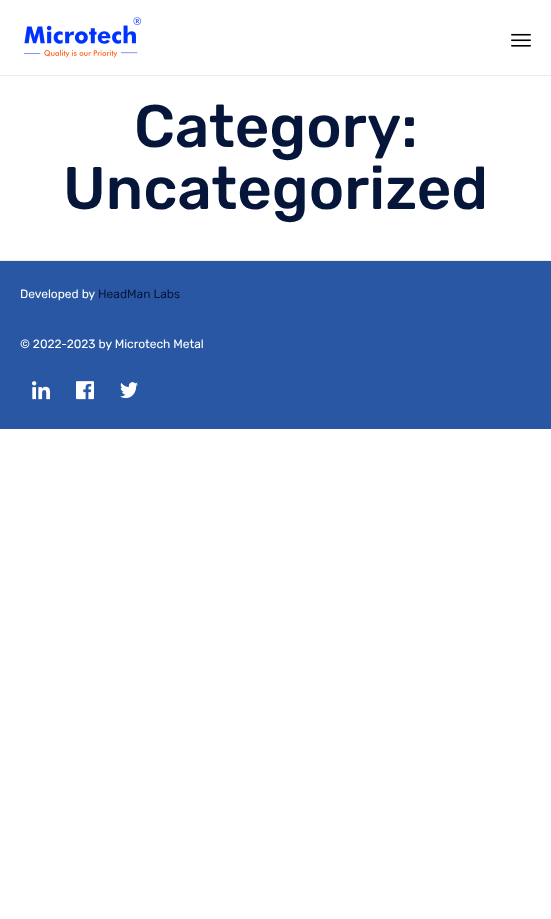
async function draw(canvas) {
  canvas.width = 551
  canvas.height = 919
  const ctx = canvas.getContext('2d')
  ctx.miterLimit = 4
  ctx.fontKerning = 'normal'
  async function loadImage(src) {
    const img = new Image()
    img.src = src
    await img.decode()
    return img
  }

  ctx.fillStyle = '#fff'
  ctx.fillRect(0, 0, 551, 919)
  ctx.fillStyle = '#ededed'
  ctx.fillRect(0, 75, 551, 1)
  ctx.drawImage(await loadImage('image0.png'), 23, 17, 119, 41)
  ctx.drawImage(await loadImage('image1.png'), 511, 33, 20, 14)
  ctx.fillRect(0, 260, 551, 1)
  ctx.font = '500 60px Rubik'
  ctx.fillStyle = '#06163a'
  ctx.fillText('Category:', 134, 147)
  ctx.fillText('Uncategorized', 63, 209)
  ctx.fillStyle = '#2957a4'
  ctx.fillRect(0, 261, 551, 168)
  ctx.font = '12px Rubik'
  ctx.fillStyle = '#fff'
  ctx.fillText('Developed by', 20, 298)
  ctx.fillStyle = '#06163a'
  ctx.fillText('HeadMan Labs', 98, 298)
  ctx.fillStyle = '#fff'
  ctx.fillText('© 2022-2023 by Microtech Metal', 20, 348)
  ctx.drawImage(await loadImage('image2.png'), 32, 381, 18, 19)
  ctx.drawImage(await loadImage('image3.png'), 76, 381, 18, 19)
  ctx.drawImage(await loadImage('image4.png'), 120, 382, 18, 17)
}

draw(document.querySelector('canvas'))
